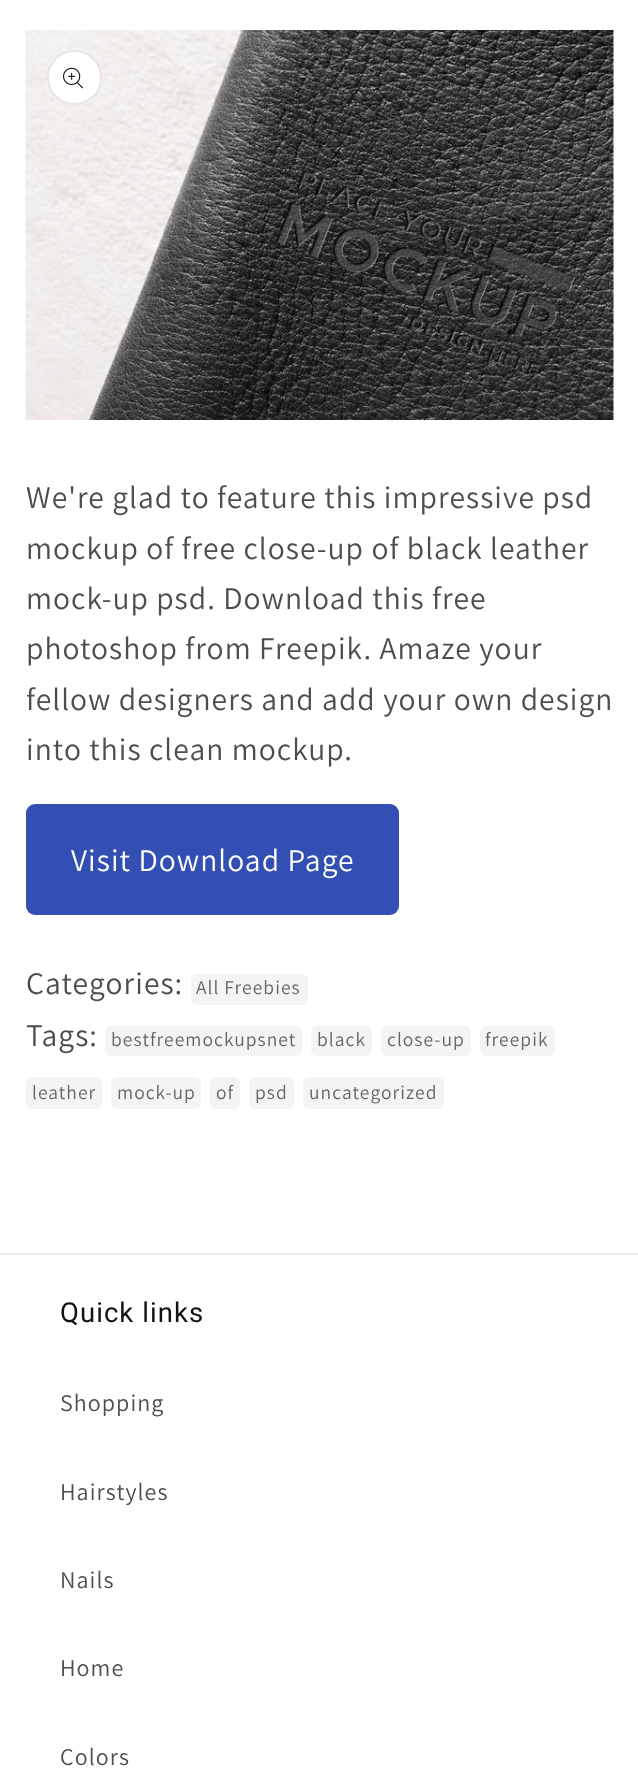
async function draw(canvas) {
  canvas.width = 638
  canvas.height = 1774
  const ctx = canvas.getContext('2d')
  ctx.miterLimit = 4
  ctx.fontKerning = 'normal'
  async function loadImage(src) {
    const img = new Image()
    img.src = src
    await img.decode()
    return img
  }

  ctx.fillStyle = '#fff'
  ctx.fillRect(0, 0, 638, 1774)
  ctx.drawImage(await loadImage('image0.png'), 25, 30, 589, 390)
  ctx.beginPath()
  ctx.arc(74.5, 77.5, 27.5, 0, 2 * Math.PI)
  ctx.fill()
  ctx.beginPath()
  ctx.arc(74.5, 77.5, 26.5, 0, 2 * Math.PI)
  ctx.strokeStyle = '#1212121a'
  ctx.lineWidth = 2
  ctx.stroke()
  ctx.drawImage(await loadImage('image1.png'), 63, 67, 20, 22)
  ctx.letterSpacing = '1.05px'
  ctx.font = '31.5px Assistant'
  ctx.fillStyle = '#4d4d4d'
  ctx.fillText('We\'re glad to feature this impressive psd', 26, 508)
  ctx.fillText('mockup of free close-up of black leather', 26, 559)
  ctx.fillText('mock-up psd. Download this free', 26, 609)
  ctx.fillText('photoshop from Freepik. Amaze your', 26, 659)
  ctx.fillText('fellow designers and add your own design', 26, 710)
  ctx.fillText('into this clean mockup.', 26, 760)
  ctx.fillStyle = '#334fb4'
  ctx.beginPath()
  ctx.roundRect(26, 804, 373, 111, 9)
  ctx.fill()
  ctx.fillStyle = '#fff'
  ctx.fillText('Visit Download Page', 71, 871)
  ctx.fillStyle = '#4d4d4d'
  ctx.fillText('Categories:', 26, 994)
  ctx.fillStyle = '#f3f4f6'
  ctx.beginPath()
  ctx.roundRect(191, 974, 117, 31, 6)
  ctx.fill()
  ctx.font = '19.5px Assistant'
  ctx.fillStyle = '#656565'
  ctx.fillText('All Freebies', 196, 994)
  ctx.font = '31.5px Assistant'
  ctx.fillStyle = '#4d4d4d'
  ctx.fillText('Tags:', 26, 1046)
  ctx.fillStyle = '#f3f4f6'
  ctx.beginPath()
  ctx.roundRect(105, 1026, 197, 30, 6)
  ctx.fill()
  ctx.font = '19.5px Assistant'
  ctx.fillStyle = '#656565'
  ctx.fillText('bestfreemockupsnet', 111, 1046)
  ctx.fillStyle = '#f3f4f6'
  ctx.beginPath()
  ctx.roundRect(311, 1026, 61, 30, 6)
  ctx.fill()
  ctx.fillStyle = '#656565'
  ctx.fillText('black', 317, 1046)
  ctx.fillStyle = '#f3f4f6'
  ctx.beginPath()
  ctx.roundRect(381, 1026, 90, 30, 6)
  ctx.fill()
  ctx.fillStyle = '#656565'
  ctx.fillText('close-up', 387, 1046)
  ctx.fillStyle = '#f3f4f6'
  ctx.beginPath()
  ctx.roundRect(480, 1026, 75, 30, 6)
  ctx.fill()
  ctx.fillStyle = '#656565'
  ctx.fillText('freepik', 485, 1046)
  ctx.fillStyle = '#f3f4f6'
  ctx.beginPath()
  ctx.roundRect(26, 1077, 76, 32, 6)
  ctx.fill()
  ctx.fillStyle = '#656565'
  ctx.fillText('leather', 32, 1099)
  ctx.fillStyle = '#f3f4f6'
  ctx.beginPath()
  ctx.roundRect(111, 1077, 90, 32, 6)
  ctx.fill()
  ctx.fillStyle = '#656565'
  ctx.fillText('mock-up', 117, 1099)
  ctx.fillStyle = '#f3f4f6'
  ctx.beginPath()
  ctx.roundRect(210, 1077, 30, 32, 6)
  ctx.fill()
  ctx.fillStyle = '#656565'
  ctx.fillText('of', 216, 1099)
  ctx.fillStyle = '#f3f4f6'
  ctx.beginPath()
  ctx.roundRect(249, 1077, 45, 32, 6)
  ctx.fill()
  ctx.fillStyle = '#656565'
  ctx.fillText('psd', 255, 1099)
  ctx.fillStyle = '#f3f4f6'
  ctx.beginPath()
  ctx.roundRect(303, 1077, 141, 32, 6)
  ctx.fill()
  ctx.fillStyle = '#656565'
  ctx.fillText('uncategorized', 309, 1099)
  ctx.fillStyle = '#ececec'
  ctx.fillRect(0, 1253, 638, 2)
  ctx.font = '27.5px Roboto'
  ctx.fillStyle = '#121212'
  ctx.fillText('Quick links', 60, 1322)
  ctx.font = '24px Assistant'
  ctx.fillStyle = '#4d4d4d'
  ctx.fillText('Shopping', 60, 1411)
  ctx.fillText('Hairstyles', 60, 1500)
  ctx.fillText('Nails', 60, 1588)
  ctx.fillText('Home', 60, 1676)
  ctx.fillText('Colors', 60, 1765)
}

draw(document.querySelector('canvas'))
